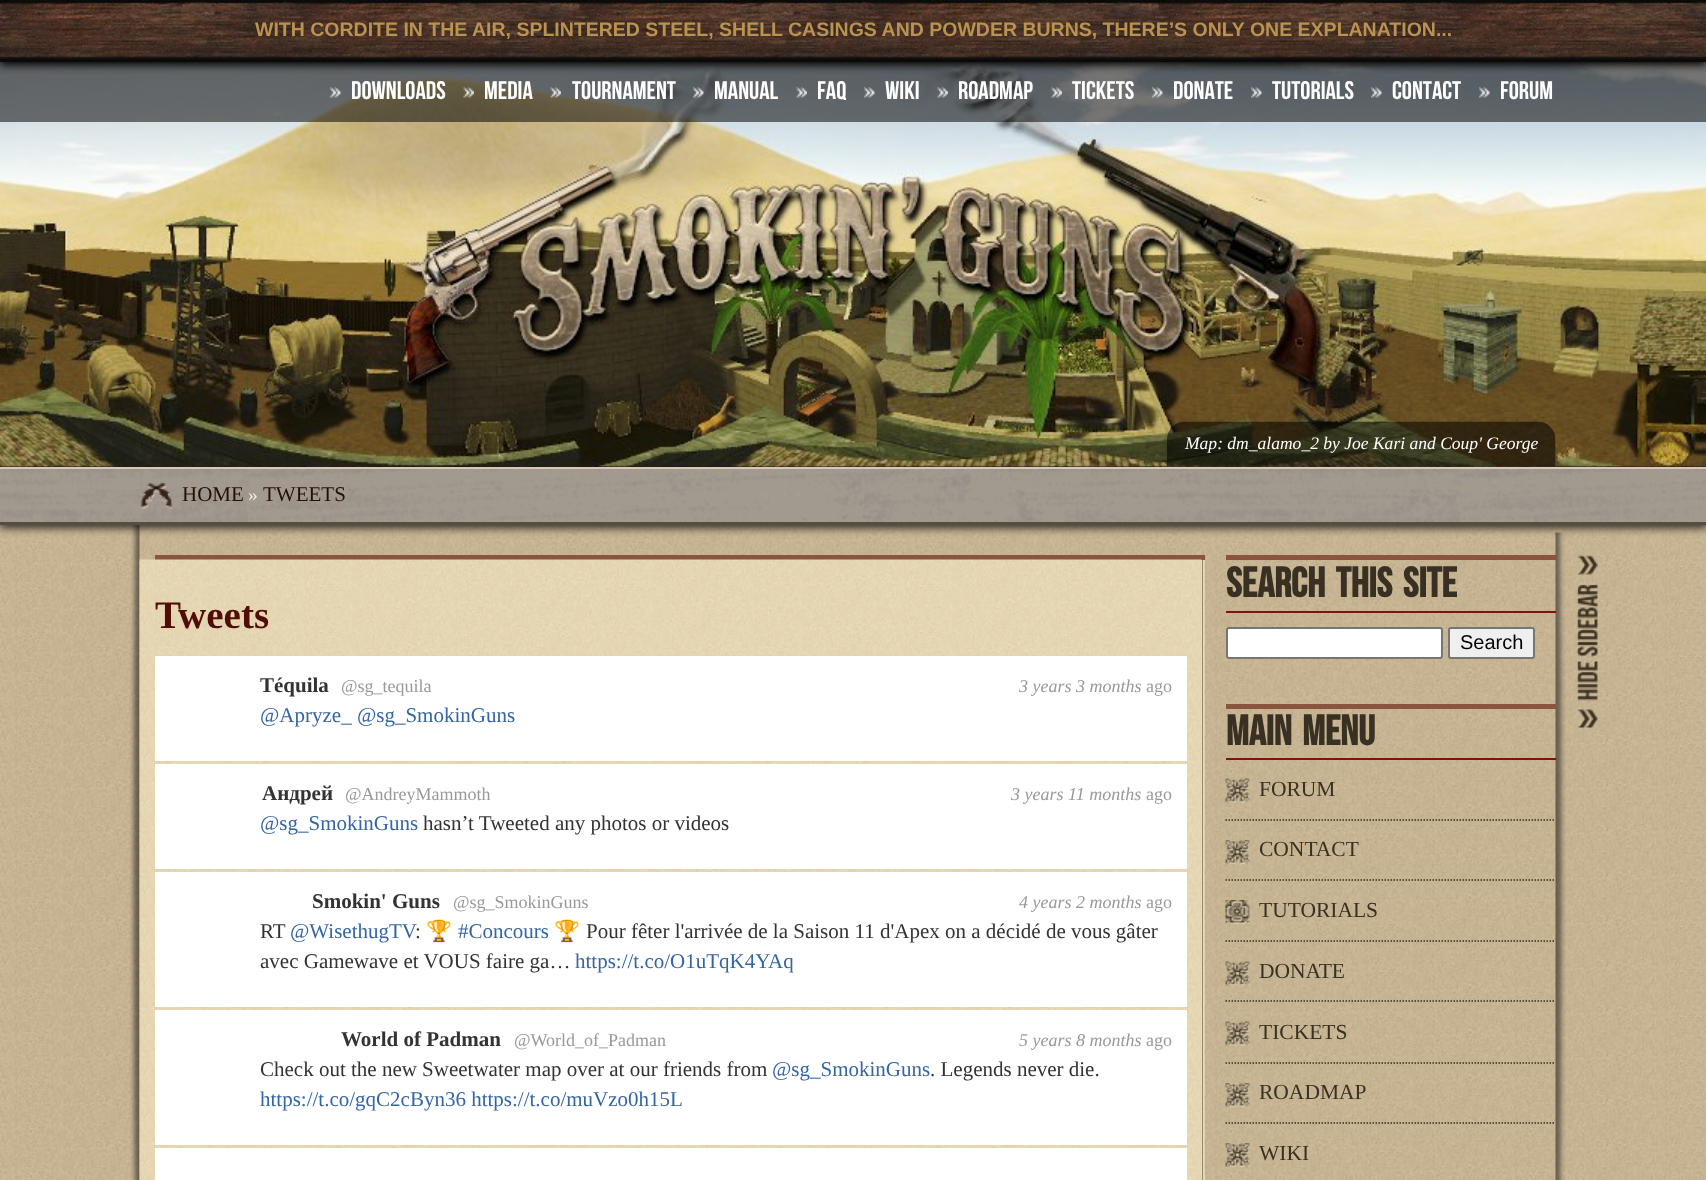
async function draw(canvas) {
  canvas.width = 1706
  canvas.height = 1180
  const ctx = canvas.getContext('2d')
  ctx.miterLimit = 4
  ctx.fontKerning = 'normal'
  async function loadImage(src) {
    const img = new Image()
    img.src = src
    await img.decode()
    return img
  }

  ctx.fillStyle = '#fff'
  ctx.fillRect(0, 0, 1706, 1180)
  ctx.drawImage(await loadImage('image0.png'), 0, 525, 1706, 655)
  ctx.drawImage(await loadImage('image1.png'), 0, 466, 1706, 1)
  ctx.drawImage(await loadImage('image2.png'), 0, 62, 1706, 405)
  ctx.fillStyle = '#000'
  ctx.filter = 'blur(4.5px)'
  ctx.beginPath()
  ctx.rect(0, 3, 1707, 62)
  ctx.fill()
  ctx.filter = 'none'
  ctx.drawImage(await loadImage('image3.png'), 0, 0, 1706, 59)
  ctx.fillStyle = '#0a0a09'
  ctx.fillRect(0, 59, 1706, 3)
  ctx.font = 'bold 19.5px Liberation Sans'
  ctx.fillStyle = '#ba9350'
  ctx.fillText('WITH CORDITE IN THE AIR, SPLINTERED STEEL, SHELL CASINGS AND POWDER BURNS, THERE’S ONLY ONE EXPLANATION...', 255, 36)
  ctx.fillStyle = '#00000087'
  ctx.fillRect(0, 62, 1706, 60)
  ctx.drawImage(await loadImage('image4.png'), 330, 87, 11, 11)
  ctx.font = '25.5px Bebas Neue'
  ctx.fillStyle = '#fff'
  ctx.fillText('Downloads', 351, 99)
  ctx.drawImage(await loadImage('image5.png'), 463, 87, 11, 11)
  ctx.fillText('Media', 484, 99)
  ctx.drawImage(await loadImage('image6.png'), 550, 87, 11, 11)
  ctx.fillText('Tournament', 572, 99)
  ctx.drawImage(await loadImage('image7.png'), 693, 87, 11, 11)
  ctx.fillText('Manual', 714, 99)
  ctx.drawImage(await loadImage('image8.png'), 796, 87, 11, 11)
  ctx.fillText('FAQ', 817, 99)
  ctx.drawImage(await loadImage('image9.png'), 864, 87, 11, 11)
  ctx.fillText('Wiki', 885, 99)
  ctx.drawImage(await loadImage('image10.png'), 937, 87, 11, 11)
  ctx.fillText('Roadmap', 958, 99)
  ctx.drawImage(await loadImage('image11.png'), 1051, 87, 11, 11)
  ctx.fillText('Tickets', 1072, 99)
  ctx.drawImage(await loadImage('image12.png'), 1152, 87, 11, 11)
  ctx.fillText('Donate', 1173, 99)
  ctx.drawImage(await loadImage('image13.png'), 1251, 87, 11, 11)
  ctx.fillText('Tutorials', 1272, 99)
  ctx.drawImage(await loadImage('image14.png'), 1371, 87, 11, 11)
  ctx.fillText('Contact', 1392, 99)
  ctx.drawImage(await loadImage('image15.png'), 1479, 87, 11, 11)
  ctx.fillText('Forum', 1500, 99)
  ctx.fillStyle = '#302c23'
  ctx.filter = 'blur(4.5px)'
  ctx.beginPath()
  ctx.rect(0, 470, 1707, 58)
  ctx.fill()
  ctx.filter = 'none'
  ctx.drawImage(await loadImage('image16.png'), 1167, 421, 389, 46)
  ctx.font = 'italic 17.55px Liberation Serif'
  ctx.fillStyle = '#fff'
  ctx.fillText('Map: dm_alamo_2 by Joe Kari and Coup\' George', 1185, 449)
  ctx.fillStyle = '#a39a8f'
  ctx.fillRect(0, 469, 1706, 53)
  ctx.drawImage(await loadImage('image17.png'), 0, 469, 1706, 53)
  ctx.fillStyle = '#d9c8b8'
  ctx.fillRect(0, 467, 1706, 2)
  ctx.fillStyle = '#544d46'
  ctx.fillRect(0, 522, 1706, 3)
  ctx.drawImage(await loadImage('image18.png'), 140, 482, 33, 27)
  ctx.font = '21px Liberation Serif'
  ctx.fillStyle = '#241007'
  ctx.fillText('HOME', 182, 501)
  ctx.font = '19.5px Liberation Serif'
  ctx.fillStyle = '#f2ebe4'
  ctx.fillText('»', 248, 501)
  ctx.font = '21px Liberation Serif'
  ctx.fillStyle = '#241007'
  ctx.fillText('TWEETS', 263, 501)
  ctx.drawImage(await loadImage('image19.png'), 129, 525, 11, 655)
  ctx.drawImage(await loadImage('image20.png'), 1202, 560, 3, 620)
  ctx.fillStyle = '#8b553d'
  ctx.fillRect(155, 555, 1050, 5)
  ctx.fillStyle = '#ede0b6'
  ctx.fillRect(1201, 560, 1, 620)
  ctx.drawImage(await loadImage('image21.png'), 139, 559, 1063, 621)
  ctx.font = 'bold 39px Liberation Serif'
  ctx.fillStyle = '#510d05'
  ctx.fillText('Tweets', 155, 628)
  ctx.fillStyle = '#fff'
  ctx.fillRect(155, 656, 1032, 105)
  ctx.font = 'bold 21px Liberation Serif'
  ctx.fillStyle = '#333'
  ctx.fillText('Téquila', 260, 692)
  ctx.font = '18px Liberation Serif'
  ctx.fillStyle = '#999'
  ctx.fillText('@sg_tequila', 341, 692)
  ctx.font = 'italic 18px Liberation Serif'
  ctx.fillText('3 years 3 months', 1019, 692)
  ctx.font = '18px Liberation Serif'
  ctx.fillText('ago', 1146, 692)
  ctx.font = '21px Liberation Serif'
  ctx.fillStyle = '#3465a4'
  ctx.fillText('@Apryze_ @sg_SmokinGuns', 260, 722)
  ctx.fillStyle = '#fff'
  ctx.fillRect(155, 764, 1032, 105)
  ctx.font = 'bold 21px Liberation Serif'
  ctx.fillStyle = '#333'
  ctx.fillText('Андрей', 262, 800)
  ctx.font = '18px Liberation Serif'
  ctx.fillStyle = '#999'
  ctx.fillText('@AndreyMammoth', 345, 800)
  ctx.font = 'italic 18px Liberation Serif'
  ctx.fillText('3 years 11 months', 1011, 800)
  ctx.font = '18px Liberation Serif'
  ctx.fillText('ago', 1146, 800)
  ctx.font = '21px Liberation Serif'
  ctx.fillStyle = '#3465a4'
  ctx.fillText('@sg_SmokinGuns', 260, 830)
  ctx.fillStyle = '#333'
  ctx.fillText('hasn’t Tweeted any photos or videos', 423, 830)
  ctx.fillStyle = '#fff'
  ctx.fillRect(155, 872, 1032, 135)
  ctx.font = 'bold 21px Liberation Serif'
  ctx.fillStyle = '#333'
  ctx.fillText('Smokin\' Guns', 312, 908)
  ctx.font = '18px Liberation Serif'
  ctx.fillStyle = '#999'
  ctx.fillText('@sg_SmokinGuns', 453, 908)
  ctx.font = 'italic 18px Liberation Serif'
  ctx.fillText('4 years 2 months', 1019, 908)
  ctx.font = '18px Liberation Serif'
  ctx.fillText('ago', 1146, 908)
  ctx.font = '21px Liberation Serif'
  ctx.fillStyle = '#333'
  ctx.fillText('RT', 260, 938)
  ctx.fillStyle = '#3465a4'
  ctx.fillText('@WisethugTV', 290, 938)
  ctx.fillStyle = '#333'
  ctx.fillText(':', 415, 938)
  ctx.font = '21px Noto Color Emoji'
  ctx.fillText('🏆', 426, 938)
  ctx.font = '21px Liberation Serif'
  ctx.fillStyle = '#3465a4'
  ctx.fillText('#Concours', 458, 938)
  ctx.font = '21px Noto Color Emoji'
  ctx.fillStyle = '#333'
  ctx.fillText('🏆', 554, 938)
  ctx.font = '21px Liberation Serif'
  ctx.fillText('Pour fêter l\'arrivée de la Saison 11 d\'Apex on a décidé de vous gâter', 586, 938)
  ctx.fillText('avec Gamewave et VOUS faire ga…', 260, 968)
  ctx.fillStyle = '#3465a4'
  ctx.fillText('https://t.co/O1uTqK4YAq', 575, 968)
  ctx.fillStyle = '#fff'
  ctx.fillRect(155, 1010, 1032, 135)
  ctx.font = 'bold 21px Liberation Serif'
  ctx.fillStyle = '#333'
  ctx.fillText('World of Padman', 341, 1046)
  ctx.font = '18px Liberation Serif'
  ctx.fillStyle = '#999'
  ctx.fillText('@World_of_Padman', 514, 1046)
  ctx.font = 'italic 18px Liberation Serif'
  ctx.fillText('5 years 8 months', 1019, 1046)
  ctx.font = '18px Liberation Serif'
  ctx.fillText('ago', 1146, 1046)
  ctx.font = '21px Liberation Serif'
  ctx.fillStyle = '#333'
  ctx.fillText('Check out the new Sweetwater map over at our friends from', 260, 1076)
  ctx.fillStyle = '#3465a4'
  ctx.fillText('@sg_SmokinGuns', 772, 1076)
  ctx.fillStyle = '#333'
  ctx.fillText('. Legends never die.', 930, 1076)
  ctx.fillStyle = '#3465a4'
  ctx.fillText('https://t.co/gqC2cByn36 https://t.co/muVzo0h15L', 260, 1106)
  ctx.fillStyle = '#fff'
  ctx.fillRect(155, 1148, 1032, 32)
  ctx.drawImage(await loadImage('image22.png'), 1555, 532, 11, 648)
  ctx.fillStyle = '#8b553d'
  ctx.fillRect(1226, 555, 330, 5)
  ctx.fillStyle = '#851109'
  ctx.fillRect(1226, 611, 330, 2)
  ctx.wordSpacing = '4px'
  ctx.font = 'bold 42px Bebas Neue'
  ctx.fillStyle = '#383022'
  ctx.fillText('Search this Site', 1226, 597)
  ctx.fillStyle = '#fff'
  ctx.beginPath()
  ctx.roundRect(1227, 628, 215, 30, 2)
  ctx.fill()
  ctx.strokeStyle = '#767676'
  ctx.lineWidth = 2
  ctx.stroke()
  ctx.fillStyle = '#efefef'
  ctx.beginPath()
  ctx.roundRect(1449, 628, 85, 30, 2)
  ctx.fill()
  ctx.stroke()
  ctx.wordSpacing = '0px'
  ctx.font = '20px Liberation Sans'
  ctx.fillStyle = '#000'
  ctx.fillText('Search', 1460, 649)
  ctx.fillStyle = '#8b553d'
  ctx.fillRect(1226, 704, 330, 5)
  ctx.fillStyle = '#851109'
  ctx.fillRect(1226, 758, 330, 2)
  ctx.wordSpacing = '4px'
  ctx.font = 'bold 42px Bebas Neue'
  ctx.fillStyle = '#383022'
  ctx.fillText('Main menu', 1226, 745)
  ctx.drawImage(await loadImage('image23.png'), 1225, 778, 25, 25)
  ctx.beginPath()
  ctx.moveTo(1225.5, 820)
  ctx.lineTo(1555.5, 820)
  ctx.strokeStyle = '#383020'
  ctx.lineWidth = 1.5
  ctx.setLineDash([1.5, 1.5])
  ctx.stroke()
  ctx.wordSpacing = '0px'
  ctx.font = '21.5px Liberation Serif'
  ctx.fillText('FORUM', 1259, 796)
  ctx.drawImage(await loadImage('image24.png'), 1225, 840, 25, 24)
  ctx.beginPath()
  ctx.moveTo(1225.5, 880)
  ctx.lineTo(1555.5, 880)
  ctx.stroke()
  ctx.fillText('CONTACT', 1259, 856)
  ctx.drawImage(await loadImage('image25.png'), 1225, 900, 25, 24)
  ctx.beginPath()
  ctx.moveTo(1225.5, 941)
  ctx.lineTo(1555.5, 941)
  ctx.stroke()
  ctx.fillText('TUTORIALS', 1259, 917)
  ctx.drawImage(await loadImage('image26.png'), 1225, 961, 25, 25)
  ctx.beginPath()
  ctx.moveTo(1225.5, 1001)
  ctx.lineTo(1555.5, 1001)
  ctx.stroke()
  ctx.fillText('DONATE', 1259, 978)
  ctx.drawImage(await loadImage('image27.png'), 1225, 1021, 25, 25)
  ctx.beginPath()
  ctx.moveTo(1225.5, 1063)
  ctx.lineTo(1555.5, 1063)
  ctx.stroke()
  ctx.fillText('TICKETS', 1259, 1039)
  ctx.drawImage(await loadImage('image28.png'), 1225, 1083, 25, 24)
  ctx.beginPath()
  ctx.moveTo(1225.5, 1123)
  ctx.lineTo(1555.5, 1123)
  ctx.stroke()
  ctx.fillText('ROADMAP', 1259, 1099)
  ctx.drawImage(await loadImage('image29.png'), 1225, 1143, 25, 24)
  ctx.fillText('WIKI', 1259, 1160)
  ctx.drawImage(await loadImage('image30.png'), 1576, 555, 22, 173)
}

draw(document.querySelector('canvas'))
